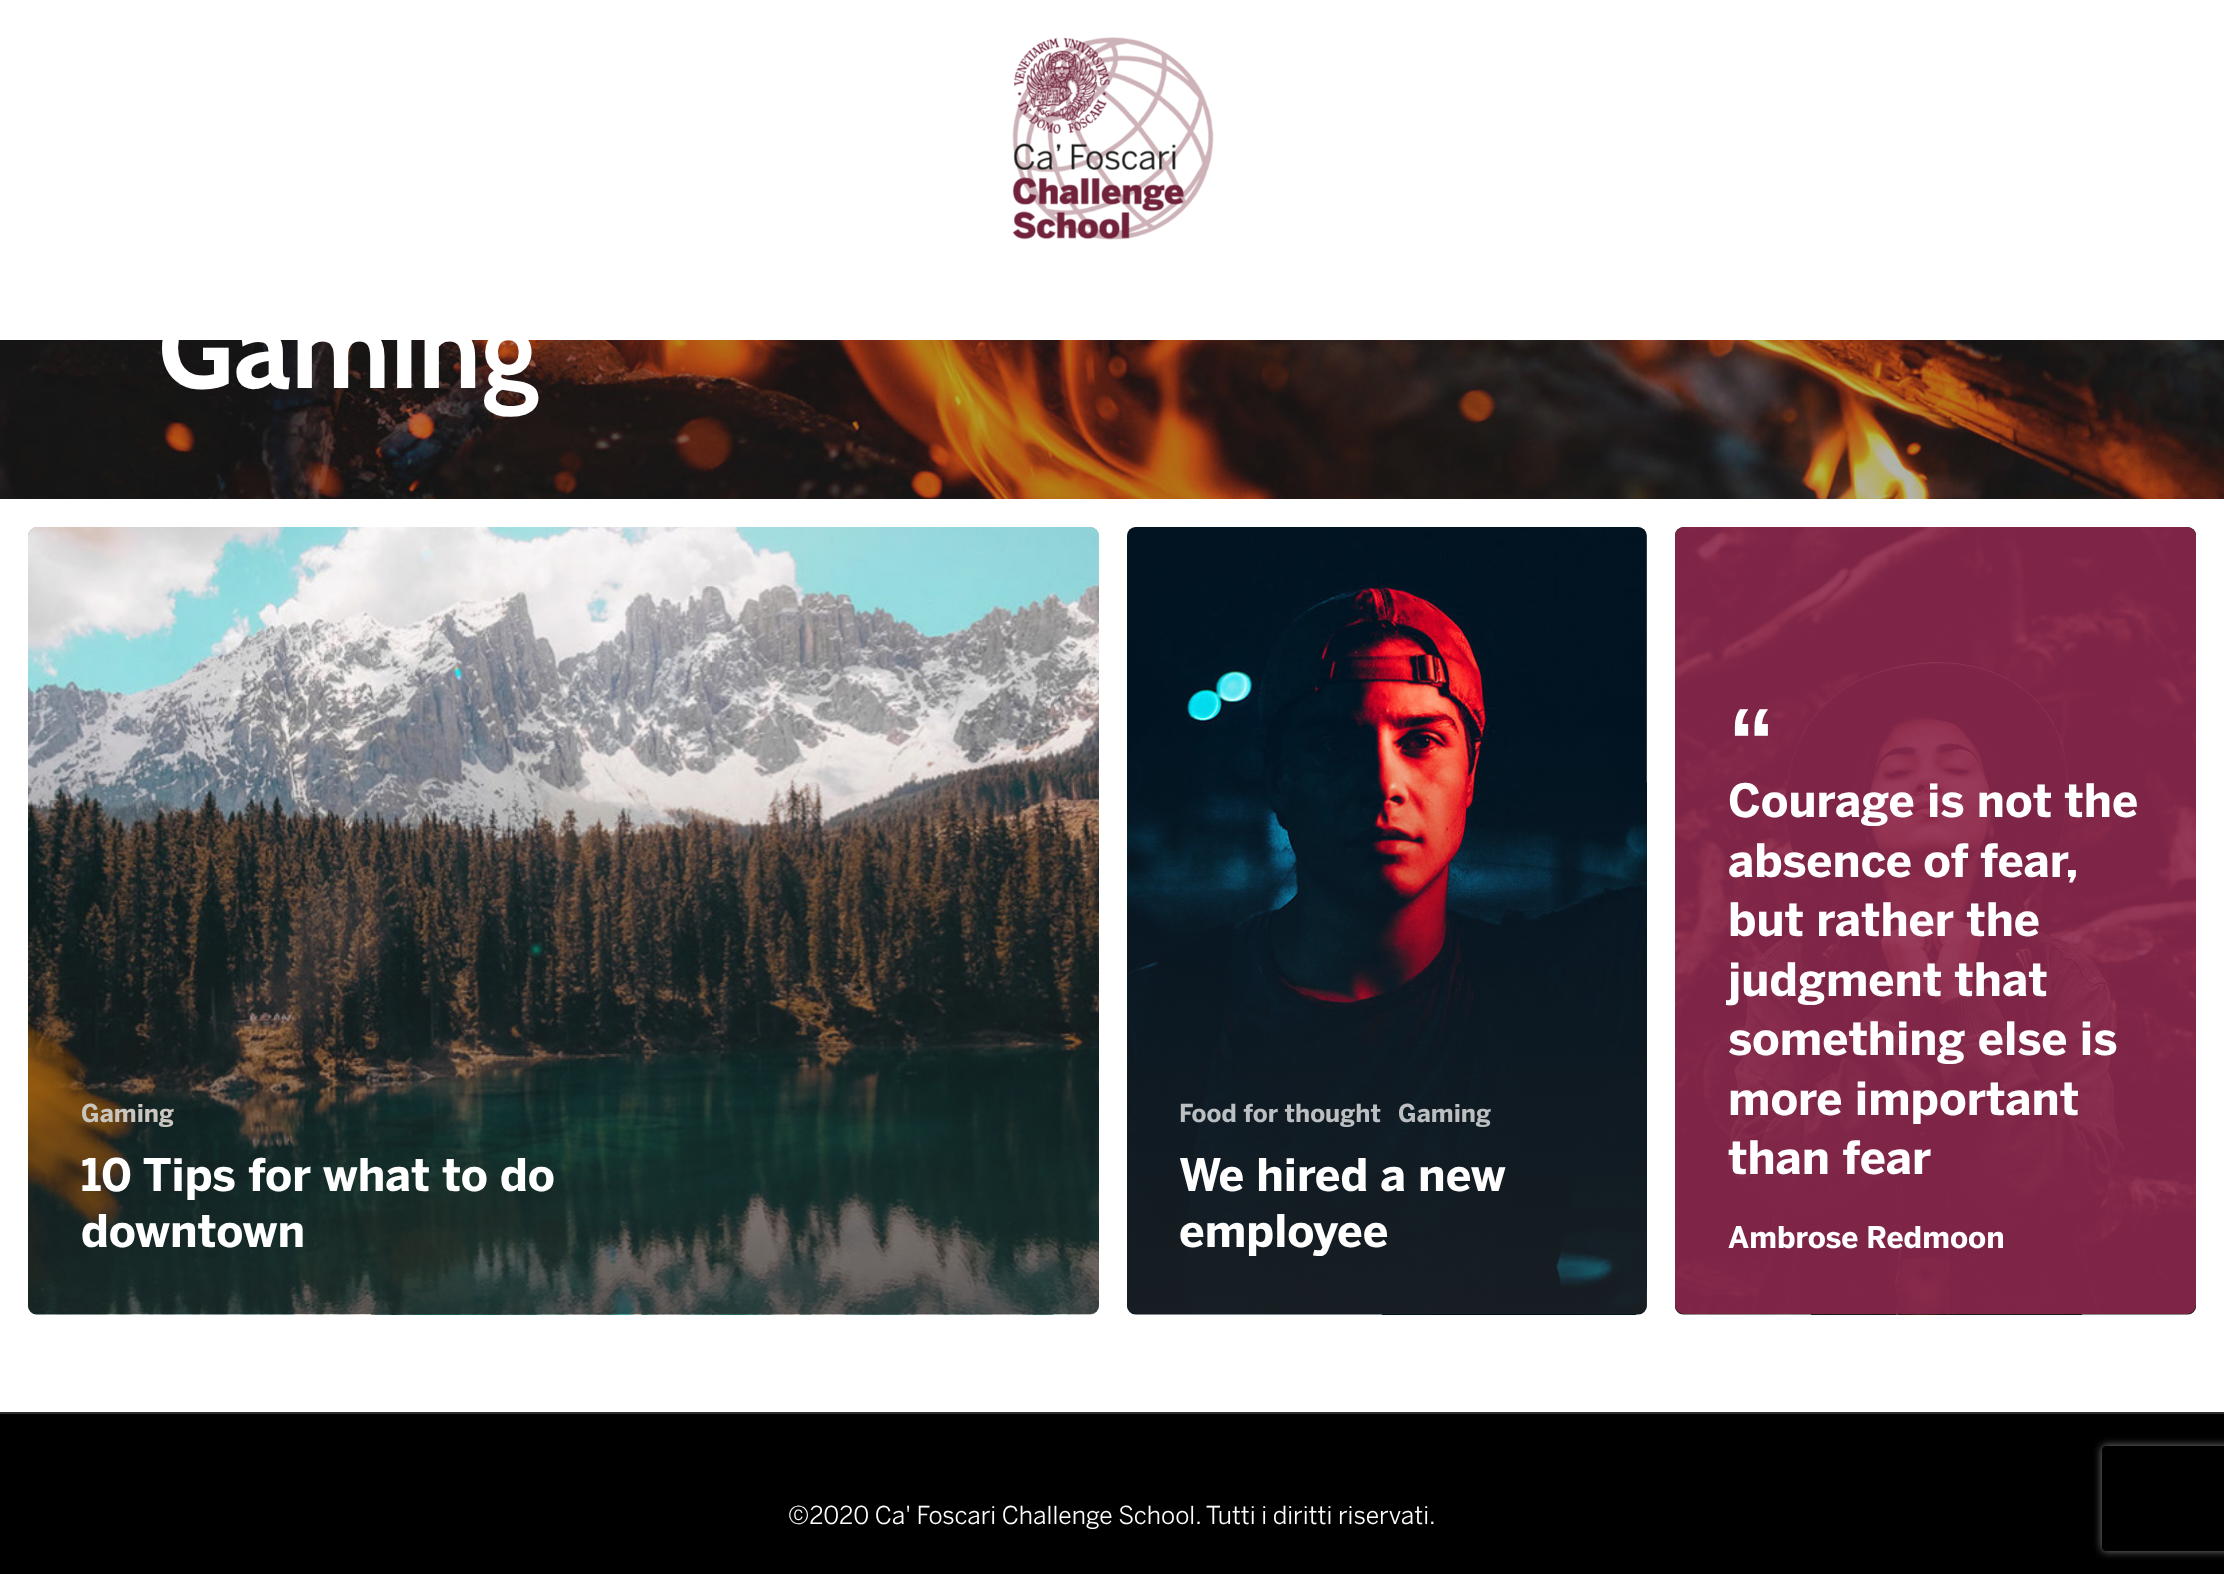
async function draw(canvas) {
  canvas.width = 2224
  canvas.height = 1574
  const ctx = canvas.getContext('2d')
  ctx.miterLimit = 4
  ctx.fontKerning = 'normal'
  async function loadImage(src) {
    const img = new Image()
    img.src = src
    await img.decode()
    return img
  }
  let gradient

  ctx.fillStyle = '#fff'
  ctx.fillRect(0, 0, 2224, 1574)
  ctx.drawImage(await loadImage('image0.png'), 1012, 37, 202, 203)
  ctx.drawImage(await loadImage('image1.png'), 0, 340, 2224, 159)
  ctx.font = 'bold 114.5px Cabin'
  ctx.fillText('Gaming', 158, 388)
  ctx.fillStyle = '#b3b3b3'
  ctx.beginPath()
  ctx.roundRect(28, 527, 1071, 787, 9)
  ctx.fill()
  ctx.drawImage(await loadImage('image2.png'), 28, 527, 1071, 788)
  gradient = ctx.createLinearGradient(566, 725, 566, 1318)
  gradient.addColorStop(0, '#23232300')
  gradient.addColorStop(1, '#232323a6')
  ctx.fillStyle = gradient
  ctx.beginPath()
  ctx.roundRect(28, 725, 1071, 589, [0, 0, 9, 9])
  ctx.fill()
  ctx.font = 'bold 24.5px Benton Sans'
  ctx.fillStyle = '#c9c6bf'
  ctx.fillText('Gaming', 81, 1122)
  ctx.font = 'bold 44.6px Benton Sans'
  ctx.fillStyle = '#fff'
  ctx.fillText('10 Tips for what to do', 81, 1191)
  ctx.fillText('downtown', 81, 1247)
  ctx.fillStyle = '#b3b3b3'
  ctx.beginPath()
  ctx.roundRect(1127, 527, 520, 787, 9)
  ctx.fill()
  ctx.drawImage(await loadImage('image3.png'), 1127, 527, 520, 788)
  gradient = ctx.createLinearGradient(1389, 725, 1389, 1318)
  gradient.addColorStop(0, '#23232300')
  gradient.addColorStop(1, '#232323a6')
  ctx.fillStyle = gradient
  ctx.beginPath()
  ctx.roundRect(1127, 725, 520, 589, [0, 0, 9, 9])
  ctx.fill()
  ctx.font = 'bold 24.5px Benton Sans'
  ctx.fillStyle = '#bcbfc1'
  ctx.fillText('Food for thought', 1179, 1122)
  ctx.fillText('Gaming', 1398, 1122)
  ctx.font = 'bold 44.6px Benton Sans'
  ctx.fillStyle = '#fff'
  ctx.fillText('We hired a new', 1179, 1191)
  ctx.fillText('employee', 1179, 1247)
  ctx.drawImage(await loadImage('image4.png'), 1675, 527, 521, 788)
  ctx.fillStyle = '#8c274fe0'
  ctx.beginPath()
  ctx.roundRect(1675, 527, 521, 787, 9)
  ctx.fill()
  ctx.font = 'bold 94px Liberation Sans'
  ctx.fillStyle = '#fff'
  ctx.fillText('“', 1728, 774)
  ctx.font = 'bold 45.5px Benton Sans'
  ctx.fillText('Courage is not the', 1728, 817)
  ctx.wordSpacing = '-1px'
  ctx.fillText('absence of fear,', 1728, 877)
  ctx.wordSpacing = '0px'
  ctx.fillText('but rather the', 1728, 936)
  ctx.fillText('judgment that', 1728, 996)
  ctx.fillText('something else is', 1728, 1055)
  ctx.fillText('more important', 1728, 1115)
  ctx.fillText('than fear', 1728, 1174)
  ctx.font = 'bold 29.75px Benton Sans'
  ctx.fillText('Ambrose Redmoon', 1728, 1248)
  ctx.fillStyle = '#000'
  ctx.fillRect(0, 1414, 2224, 160)
  ctx.fillStyle = '#2e2e2e'
  ctx.fillRect(0, 1412, 2224, 2)
  ctx.font = '24.5px Benton Sans'
  ctx.fillStyle = '#fff'
  ctx.fillText('©2020 Ca\' Foscari Challenge School. Tutti i diritti riservati.', 788, 1524)
  ctx.save()
  ctx.beginPath()
  ctx.moveTo(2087, 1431)
  ctx.lineTo(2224, 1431)
  ctx.lineTo(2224, 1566)
  ctx.lineTo(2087, 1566)
  ctx.closePath()
  ctx.moveTo(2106, 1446)
  ctx.lineTo(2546, 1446)
  ctx.bezierCurveTo(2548, 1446, 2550, 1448, 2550, 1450)
  ctx.lineTo(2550, 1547)
  ctx.bezierCurveTo(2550, 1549, 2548, 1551, 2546, 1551)
  ctx.lineTo(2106, 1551)
  ctx.bezierCurveTo(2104, 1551, 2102, 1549, 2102, 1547)
  ctx.lineTo(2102, 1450)
  ctx.bezierCurveTo(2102, 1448, 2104, 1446, 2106, 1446)
  ctx.closePath()
  ctx.clip('evenodd')
  ctx.fillStyle = '#808080'
  ctx.filter = 'blur(4.5px)'
  ctx.beginPath()
  ctx.roundRect(2102, 1446, 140, 105, 4)
  ctx.fill()
  ctx.filter = 'none'
  ctx.restore()
}

draw(document.querySelector('canvas'))
